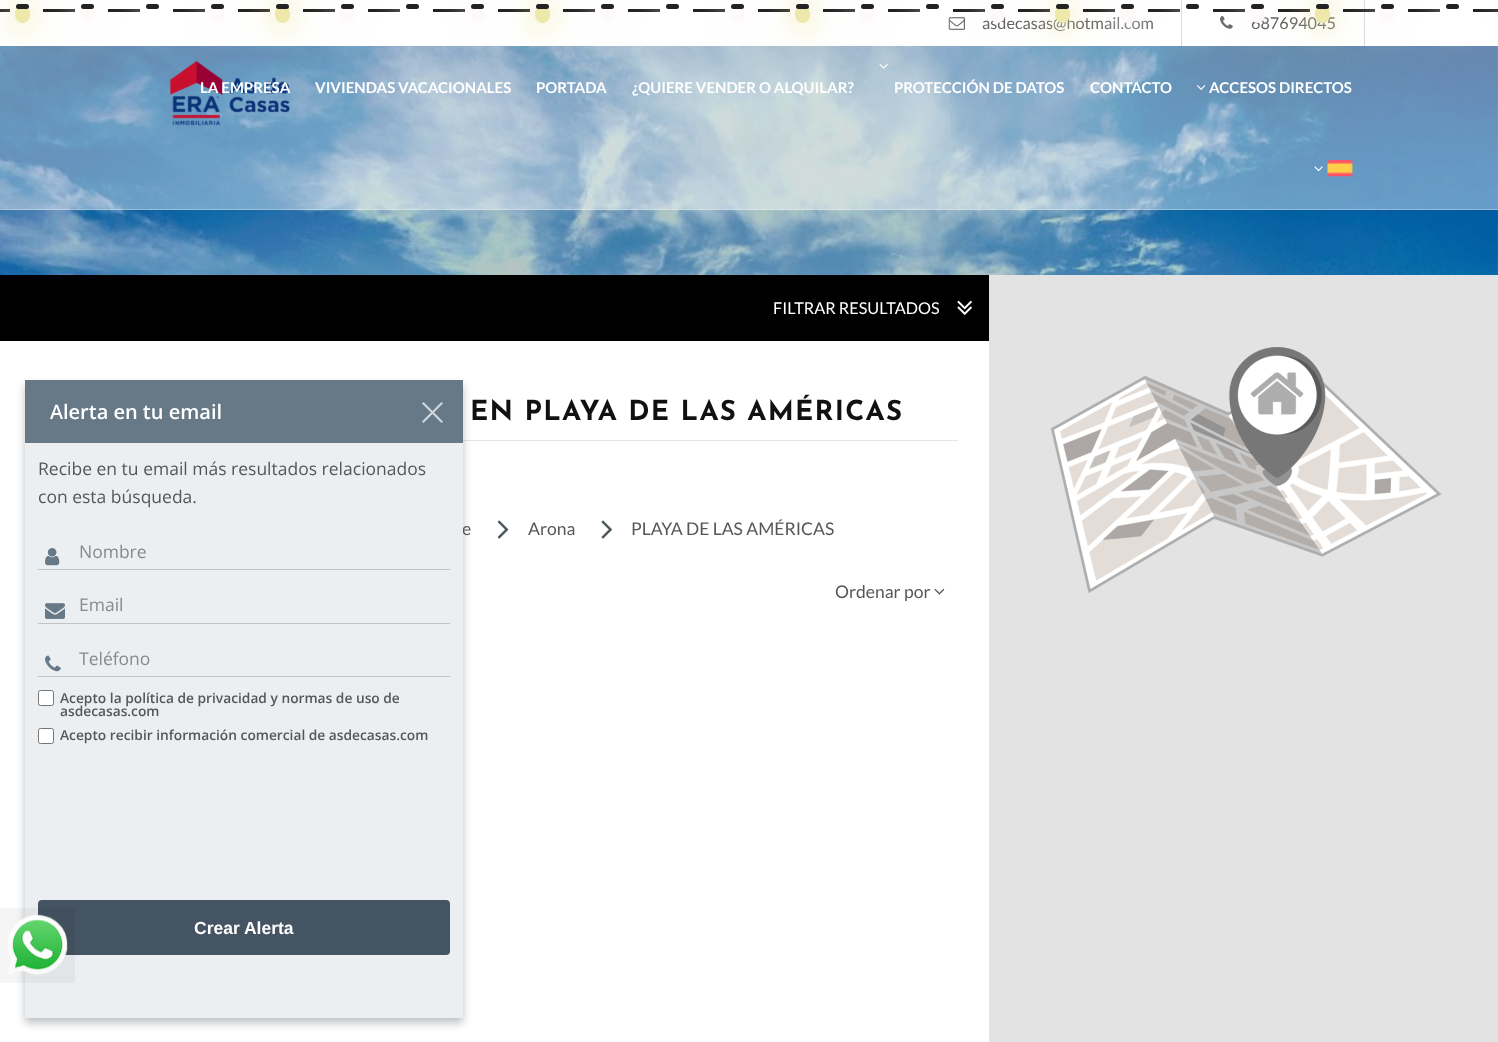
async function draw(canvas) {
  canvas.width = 1498
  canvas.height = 1042
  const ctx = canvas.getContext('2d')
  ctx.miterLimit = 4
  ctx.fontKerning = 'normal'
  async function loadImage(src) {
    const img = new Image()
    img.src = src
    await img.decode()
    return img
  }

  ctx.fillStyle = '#fff'
  ctx.fillRect(0, 0, 1498, 1042)
  ctx.fillStyle = '#222'
  ctx.fillRect(0, 9, 10, 3)
  ctx.drawImage(await loadImage('image2.png'), 0, 46, 1498, 229)
  ctx.fillStyle = '#ffffff66'
  ctx.fillRect(0, 46, 1498, 164)
  ctx.fillStyle = '#eee8aa'
  ctx.filter = 'blur(15px)'
  ctx.beginPath()
  ctx.roundRect(11, 5, 23, 24, 11.5)
  ctx.fill()
  ctx.filter = 'none'
  ctx.beginPath()
  ctx.roundRect(15, 6, 15, 17, 7.5)
  ctx.fill()
  ctx.fillStyle = '#222'
  ctx.beginPath()
  ctx.roundRect(16, 4, 13, 5, 2.5)
  ctx.fill()
  ctx.fillRect(43, 9, 32, 3)
  ctx.fillStyle = '#fffafa'
  ctx.filter = 'blur(15px)'
  ctx.beginPath()
  ctx.roundRect(76, 5, 23, 24, 11.5)
  ctx.fill()
  ctx.filter = 'none'
  ctx.beginPath()
  ctx.roundRect(80, 6, 15, 17, 7.5)
  ctx.fill()
  ctx.fillStyle = '#222'
  ctx.beginPath()
  ctx.roundRect(81, 4, 13, 5, 2.5)
  ctx.fill()
  ctx.fillRect(108, 9, 32, 3)
  ctx.drawImage(await loadImage('image3.png'), 169, 60, 121, 66)
  ctx.save()
  ctx.beginPath()
  ctx.moveTo(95, 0)
  ctx.lineTo(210, 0)
  ctx.lineTo(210, 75)
  ctx.lineTo(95, 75)
  ctx.closePath()
  ctx.moveTo(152.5, 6)
  ctx.bezierCurveTo(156.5, 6, 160, 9.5, 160, 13.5)
  ctx.lineTo(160, 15.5)
  ctx.bezierCurveTo(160, 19.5, 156.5, 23, 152.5, 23)
  ctx.bezierCurveTo(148.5, 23, 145, 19.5, 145, 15.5)
  ctx.lineTo(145, 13.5)
  ctx.bezierCurveTo(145, 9.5, 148.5, 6, 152.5, 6)
  ctx.closePath()
  ctx.clip('evenodd')
  ctx.fillStyle = '#fff'
  ctx.filter = 'blur(15px)'
  ctx.beginPath()
  ctx.roundRect(141, 5, 23, 24, 11.5)
  ctx.fill()
  ctx.filter = 'none'
  ctx.restore()
  ctx.beginPath()
  ctx.roundRect(146, 4, 13, 5, 2.5)
  ctx.fill()
  ctx.fillRect(173, 9, 32, 3)
  ctx.fillStyle = '#fffafa'
  ctx.filter = 'blur(15px)'
  ctx.beginPath()
  ctx.roundRect(206, 5, 23, 24, 11.5)
  ctx.fill()
  ctx.filter = 'none'
  ctx.beginPath()
  ctx.roundRect(210, 6, 15, 17, 7.5)
  ctx.fill()
  ctx.fillStyle = '#222'
  ctx.beginPath()
  ctx.roundRect(211, 4, 13, 5, 2.5)
  ctx.fill()
  ctx.fillRect(238, 9, 32, 3)
  ctx.fillStyle = '#eee8aa'
  ctx.filter = 'blur(15px)'
  ctx.beginPath()
  ctx.roundRect(271, 5, 23, 24, 11.5)
  ctx.fill()
  ctx.filter = 'none'
  ctx.beginPath()
  ctx.roundRect(275, 6, 15, 17, 7.5)
  ctx.fill()
  ctx.fillStyle = '#222'
  ctx.beginPath()
  ctx.roundRect(276, 4, 13, 5, 2.5)
  ctx.fill()
  ctx.fillRect(303, 9, 32, 3)
  ctx.fillStyle = '#fffafa'
  ctx.filter = 'blur(15px)'
  ctx.beginPath()
  ctx.roundRect(336, 5, 23, 24, 11.5)
  ctx.fill()
  ctx.filter = 'none'
  ctx.beginPath()
  ctx.roundRect(340, 6, 15, 17, 7.5)
  ctx.fill()
  ctx.fillStyle = '#222'
  ctx.beginPath()
  ctx.roundRect(341, 4, 13, 5, 2.5)
  ctx.fill()
  ctx.fillRect(368, 9, 32, 3)
  ctx.save()
  ctx.beginPath()
  ctx.moveTo(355, 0)
  ctx.lineTo(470, 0)
  ctx.lineTo(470, 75)
  ctx.lineTo(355, 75)
  ctx.closePath()
  ctx.moveTo(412.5, 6)
  ctx.bezierCurveTo(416.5, 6, 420, 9.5, 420, 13.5)
  ctx.lineTo(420, 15.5)
  ctx.bezierCurveTo(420, 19.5, 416.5, 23, 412.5, 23)
  ctx.bezierCurveTo(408.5, 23, 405, 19.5, 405, 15.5)
  ctx.lineTo(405, 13.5)
  ctx.bezierCurveTo(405, 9.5, 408.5, 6, 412.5, 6)
  ctx.closePath()
  ctx.clip('evenodd')
  ctx.fillStyle = '#fff'
  ctx.filter = 'blur(15px)'
  ctx.beginPath()
  ctx.roundRect(401, 5, 23, 24, 11.5)
  ctx.fill()
  ctx.filter = 'none'
  ctx.restore()
  ctx.beginPath()
  ctx.roundRect(406, 4, 13, 5, 2.5)
  ctx.fill()
  ctx.fillRect(433, 9, 32, 3)
  ctx.fillStyle = '#fffafa'
  ctx.filter = 'blur(15px)'
  ctx.beginPath()
  ctx.roundRect(466, 5, 23, 24, 11.5)
  ctx.fill()
  ctx.filter = 'none'
  ctx.beginPath()
  ctx.roundRect(470, 6, 15, 17, 7.5)
  ctx.fill()
  ctx.fillStyle = '#222'
  ctx.beginPath()
  ctx.roundRect(471, 4, 13, 5, 2.5)
  ctx.fill()
  ctx.fillRect(498, 9, 32, 3)
  ctx.fillStyle = '#eee8aa'
  ctx.filter = 'blur(15px)'
  ctx.beginPath()
  ctx.roundRect(531, 5, 23, 24, 11.5)
  ctx.fill()
  ctx.filter = 'none'
  ctx.beginPath()
  ctx.roundRect(535, 6, 15, 17, 7.5)
  ctx.fill()
  ctx.fillStyle = '#222'
  ctx.beginPath()
  ctx.roundRect(536, 4, 13, 5, 2.5)
  ctx.fill()
  ctx.fillRect(563, 9, 32, 3)
  ctx.fillStyle = '#fffafa'
  ctx.filter = 'blur(15px)'
  ctx.beginPath()
  ctx.roundRect(596, 5, 23, 24, 11.5)
  ctx.fill()
  ctx.filter = 'none'
  ctx.beginPath()
  ctx.roundRect(600, 6, 15, 17, 7.5)
  ctx.fill()
  ctx.fillStyle = '#222'
  ctx.beginPath()
  ctx.roundRect(601, 4, 13, 5, 2.5)
  ctx.fill()
  ctx.fillRect(628, 9, 32, 3)
  ctx.save()
  ctx.beginPath()
  ctx.moveTo(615, 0)
  ctx.lineTo(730, 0)
  ctx.lineTo(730, 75)
  ctx.lineTo(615, 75)
  ctx.closePath()
  ctx.moveTo(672.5, 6)
  ctx.bezierCurveTo(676.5, 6, 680, 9.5, 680, 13.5)
  ctx.lineTo(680, 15.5)
  ctx.bezierCurveTo(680, 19.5, 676.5, 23, 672.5, 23)
  ctx.bezierCurveTo(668.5, 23, 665, 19.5, 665, 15.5)
  ctx.lineTo(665, 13.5)
  ctx.bezierCurveTo(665, 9.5, 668.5, 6, 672.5, 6)
  ctx.closePath()
  ctx.clip('evenodd')
  ctx.fillStyle = '#fff'
  ctx.filter = 'blur(15px)'
  ctx.beginPath()
  ctx.roundRect(661, 5, 23, 24, 11.5)
  ctx.fill()
  ctx.filter = 'none'
  ctx.restore()
  ctx.beginPath()
  ctx.roundRect(666, 4, 13, 5, 2.5)
  ctx.fill()
  ctx.fillRect(693, 9, 32, 3)
  ctx.fillStyle = '#fffafa'
  ctx.filter = 'blur(15px)'
  ctx.beginPath()
  ctx.roundRect(726, 5, 23, 24, 11.5)
  ctx.fill()
  ctx.filter = 'none'
  ctx.beginPath()
  ctx.roundRect(730, 6, 15, 17, 7.5)
  ctx.fill()
  ctx.fillStyle = '#222'
  ctx.beginPath()
  ctx.roundRect(731, 4, 13, 5, 2.5)
  ctx.fill()
  ctx.fillRect(758, 9, 32, 3)
  ctx.fillStyle = '#eee8aa'
  ctx.filter = 'blur(15px)'
  ctx.beginPath()
  ctx.roundRect(791, 5, 23, 24, 11.5)
  ctx.fill()
  ctx.filter = 'none'
  ctx.beginPath()
  ctx.roundRect(795, 6, 15, 17, 7.5)
  ctx.fill()
  ctx.fillStyle = '#222'
  ctx.beginPath()
  ctx.roundRect(796, 4, 13, 5, 2.5)
  ctx.fill()
  ctx.fillRect(823, 9, 32, 3)
  ctx.drawImage(await loadImage('image4.png'), 879, 64, 9, 5)
  ctx.fillStyle = '#fffafa'
  ctx.filter = 'blur(15px)'
  ctx.beginPath()
  ctx.roundRect(856, 5, 23, 24, 11.5)
  ctx.fill()
  ctx.filter = 'none'
  ctx.beginPath()
  ctx.roundRect(860, 6, 15, 17, 7.5)
  ctx.fill()
  ctx.fillStyle = '#222'
  ctx.beginPath()
  ctx.roundRect(861, 4, 13, 5, 2.5)
  ctx.fill()
  ctx.fillRect(888, 9, 32, 3)
  ctx.drawImage(await loadImage('image0.png'), 948, 17, 17, 13)
  ctx.save()
  ctx.beginPath()
  ctx.moveTo(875, 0)
  ctx.lineTo(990, 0)
  ctx.lineTo(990, 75)
  ctx.lineTo(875, 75)
  ctx.closePath()
  ctx.moveTo(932.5, 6)
  ctx.bezierCurveTo(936.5, 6, 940, 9.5, 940, 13.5)
  ctx.lineTo(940, 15.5)
  ctx.bezierCurveTo(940, 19.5, 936.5, 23, 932.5, 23)
  ctx.bezierCurveTo(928.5, 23, 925, 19.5, 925, 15.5)
  ctx.lineTo(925, 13.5)
  ctx.bezierCurveTo(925, 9.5, 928.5, 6, 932.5, 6)
  ctx.closePath()
  ctx.clip('evenodd')
  ctx.fillStyle = '#fff'
  ctx.filter = 'blur(15px)'
  ctx.beginPath()
  ctx.roundRect(921, 5, 23, 24, 11.5)
  ctx.fill()
  ctx.filter = 'none'
  ctx.restore()
  ctx.beginPath()
  ctx.roundRect(926, 4, 13, 5, 2.5)
  ctx.fill()
  ctx.fillRect(953, 9, 32, 3)
  ctx.fillStyle = '#fffafa'
  ctx.filter = 'blur(15px)'
  ctx.beginPath()
  ctx.roundRect(986, 5, 23, 24, 11.5)
  ctx.fill()
  ctx.filter = 'none'
  ctx.font = '16.25px Lato'
  ctx.fillStyle = '#636363'
  ctx.fillText('asdecasas@hotmail.com', 982, 29)
  ctx.fillStyle = '#fffafa'
  ctx.beginPath()
  ctx.roundRect(990, 6, 15, 17, 7.5)
  ctx.fill()
  ctx.fillStyle = '#222'
  ctx.beginPath()
  ctx.roundRect(991, 4, 13, 5, 2.5)
  ctx.fill()
  ctx.fillRect(1018, 9, 32, 3)
  ctx.fillStyle = '#eee8aa'
  ctx.filter = 'blur(15px)'
  ctx.beginPath()
  ctx.roundRect(1051, 5, 23, 24, 11.5)
  ctx.fill()
  ctx.filter = 'none'
  ctx.beginPath()
  ctx.roundRect(1055, 6, 15, 17, 7.5)
  ctx.fill()
  ctx.fillStyle = '#222'
  ctx.beginPath()
  ctx.roundRect(1056, 4, 13, 5, 2.5)
  ctx.fill()
  ctx.fillRect(1083, 9, 32, 3)
  ctx.fillStyle = '#d8d8d8'
  ctx.fillRect(1181, 0, 1, 46)
  ctx.fillStyle = '#fffafa'
  ctx.filter = 'blur(15px)'
  ctx.beginPath()
  ctx.roundRect(1116, 5, 23, 24, 11.5)
  ctx.fill()
  ctx.filter = 'none'
  ctx.beginPath()
  ctx.roundRect(1120, 6, 15, 17, 7.5)
  ctx.fill()
  ctx.fillStyle = '#222'
  ctx.beginPath()
  ctx.roundRect(1121, 4, 13, 5, 2.5)
  ctx.fill()
  ctx.fillRect(1148, 9, 32, 3)
  ctx.drawImage(await loadImage('image1.png'), 1220, 16, 13, 13)
  ctx.save()
  ctx.beginPath()
  ctx.moveTo(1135, 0)
  ctx.lineTo(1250, 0)
  ctx.lineTo(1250, 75)
  ctx.lineTo(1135, 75)
  ctx.closePath()
  ctx.moveTo(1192.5, 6)
  ctx.bezierCurveTo(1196.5, 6, 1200, 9.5, 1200, 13.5)
  ctx.lineTo(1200, 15.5)
  ctx.bezierCurveTo(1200, 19.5, 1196.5, 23, 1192.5, 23)
  ctx.bezierCurveTo(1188.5, 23, 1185, 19.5, 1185, 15.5)
  ctx.lineTo(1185, 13.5)
  ctx.bezierCurveTo(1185, 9.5, 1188.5, 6, 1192.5, 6)
  ctx.closePath()
  ctx.clip('evenodd')
  ctx.fillStyle = '#fff'
  ctx.filter = 'blur(15px)'
  ctx.beginPath()
  ctx.roundRect(1181, 5, 23, 24, 11.5)
  ctx.fill()
  ctx.filter = 'none'
  ctx.restore()
  ctx.beginPath()
  ctx.roundRect(1186, 4, 13, 5, 2.5)
  ctx.fill()
  ctx.fillRect(1213, 9, 32, 3)
  ctx.fillStyle = '#fffafa'
  ctx.filter = 'blur(15px)'
  ctx.beginPath()
  ctx.roundRect(1246, 5, 23, 24, 11.5)
  ctx.fill()
  ctx.filter = 'none'
  ctx.fillStyle = '#636363'
  ctx.fillText('687694045', 1251, 29)
  ctx.fillStyle = '#fffafa'
  ctx.beginPath()
  ctx.roundRect(1250, 6, 15, 17, 7.5)
  ctx.fill()
  ctx.fillStyle = '#222'
  ctx.beginPath()
  ctx.roundRect(1251, 4, 13, 5, 2.5)
  ctx.fill()
  ctx.fillRect(1278, 9, 32, 3)
  ctx.fillStyle = '#d8d8d8'
  ctx.fillRect(1364, 0, 1, 46)
  ctx.fillStyle = '#eee8aa'
  ctx.filter = 'blur(15px)'
  ctx.beginPath()
  ctx.roundRect(1311, 5, 23, 24, 11.5)
  ctx.fill()
  ctx.filter = 'none'
  ctx.beginPath()
  ctx.roundRect(1315, 6, 15, 17, 7.5)
  ctx.fill()
  ctx.fillStyle = '#222'
  ctx.beginPath()
  ctx.roundRect(1316, 4, 13, 5, 2.5)
  ctx.fill()
  ctx.fillRect(1343, 9, 32, 3)
  ctx.fillStyle = '#fffafa'
  ctx.filter = 'blur(15px)'
  ctx.beginPath()
  ctx.roundRect(1376, 5, 23, 24, 11.5)
  ctx.fill()
  ctx.filter = 'none'
  ctx.beginPath()
  ctx.roundRect(1380, 6, 15, 17, 7.5)
  ctx.fill()
  ctx.fillStyle = '#222'
  ctx.beginPath()
  ctx.roundRect(1381, 4, 13, 5, 2.5)
  ctx.fill()
  ctx.fillRect(1408, 9, 32, 3)
  ctx.save()
  ctx.beginPath()
  ctx.moveTo(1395, 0)
  ctx.lineTo(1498, 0)
  ctx.lineTo(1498, 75)
  ctx.lineTo(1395, 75)
  ctx.closePath()
  ctx.moveTo(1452.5, 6)
  ctx.bezierCurveTo(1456.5, 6, 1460, 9.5, 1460, 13.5)
  ctx.lineTo(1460, 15.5)
  ctx.bezierCurveTo(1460, 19.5, 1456.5, 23, 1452.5, 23)
  ctx.bezierCurveTo(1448.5, 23, 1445, 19.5, 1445, 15.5)
  ctx.lineTo(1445, 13.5)
  ctx.bezierCurveTo(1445, 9.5, 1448.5, 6, 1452.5, 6)
  ctx.closePath()
  ctx.clip('evenodd')
  ctx.fillStyle = '#fff'
  ctx.filter = 'blur(15px)'
  ctx.beginPath()
  ctx.roundRect(1441, 5, 23, 24, 11.5)
  ctx.fill()
  ctx.filter = 'none'
  ctx.restore()
  ctx.beginPath()
  ctx.roundRect(1446, 4, 13, 5, 2.5)
  ctx.fill()
  ctx.fillRect(1473, 9, 25, 3)
  ctx.fillStyle = '#fffafa'
  ctx.filter = 'blur(15px)'
  ctx.beginPath()
  ctx.roundRect(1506, 5, 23, 24, 11.5)
  ctx.fill()
  ctx.filter = 'none'
  ctx.fillStyle = '#ffffff4d'
  ctx.fillRect(0, 209, 1498, 1)
  ctx.font = 'bold 15px Lato'
  ctx.fillStyle = '#fff'
  ctx.fillText('LA EMPRESA', 200, 93)
  ctx.fillText('VIVIENDAS VACACIONALES', 315, 93)
  ctx.fillText('PORTADA', 536, 93)
  ctx.fillText('¿QUIERE VENDER O ALQUILAR?', 632, 93)
  ctx.fillText('PROTECCIÓN DE DATOS', 894, 93)
  ctx.fillText('CONTACTO', 1090, 93)
  ctx.drawImage(await loadImage('image5.png'), 1196, 85, 10, 5)
  ctx.fillText('ACCESOS DIRECTOS', 1209, 93)
  ctx.drawImage(await loadImage('image6.png'), 1314, 166, 9, 6)
  ctx.drawImage(await loadImage('image7.png'), 1327, 160, 26, 17)
  ctx.fillStyle = '#000'
  ctx.fillRect(0, 275, 989, 66)
  ctx.font = '16.25px Lato'
  ctx.fillStyle = '#fff'
  ctx.fillText('FILTRAR RESULTADOS', 773, 314)
  ctx.drawImage(await loadImage('image8.png'), 957, 300, 15, 15)
  ctx.fillStyle = '#e3e3e3'
  ctx.fillRect(989, 275, 509, 767)
  ctx.drawImage(await loadImage('image9.png'), 1050, 347, 392, 246)
  ctx.fillStyle = '#e5e5e5'
  ctx.fillRect(463, 440, 495, 1)
  ctx.fillStyle = '#2332384d'
  ctx.filter = 'blur(4px)'
  ctx.beginPath()
  ctx.rect(25, 385, 438, 638)
  ctx.fill()
  ctx.filter = 'none'
  ctx.font = '17.5px Lato'
  ctx.fillStyle = '#575757'
  ctx.fillText('e', 462, 535)
  ctx.fillStyle = '#eceff1'
  ctx.fillRect(25, 443, 438, 575)
  ctx.fillStyle = '#677887'
  ctx.fillRect(25, 380, 438, 63)
  ctx.font = '500 20px Noto Sans'
  ctx.fillStyle = '#fff'
  ctx.fillText('A', 50, 419)
  ctx.font = '600 20px Open Sans'
  ctx.fillText('lerta en tu email', 63, 419)
  ctx.fillStyle = '#d1d7db'
  ctx.beginPath()
  ctx.moveTo(423.5, 402)
  ctx.lineTo(443, 421.5)
  ctx.lineTo(441.5, 423)
  ctx.lineTo(422, 403.5)
  ctx.closePath()
  ctx.fill()
  ctx.beginPath()
  ctx.moveTo(422, 421.5)
  ctx.lineTo(441.5, 402)
  ctx.lineTo(443, 403.5)
  ctx.lineTo(423.5, 423)
  ctx.closePath()
  ctx.fill()
  ctx.font = '17.5px Open Sans'
  ctx.fillStyle = '#575757'
  ctx.fillText('Recibe en tu email más resultados relacionados', 38, 475)
  ctx.fillText('con esta búsqueda.', 38, 503)
  ctx.drawImage(await loadImage('image10.png'), 45, 548, 15, 18)
  ctx.fillStyle = '#c2c2c2'
  ctx.fillRect(38, 569, 412, 1)
  ctx.fillStyle = '#8a8989'
  ctx.fillText('Nombre', 79, 558)
  ctx.drawImage(await loadImage('image11.png'), 45, 603, 20, 16)
  ctx.fillStyle = '#c2c2c2'
  ctx.fillRect(38, 623, 412, 1)
  ctx.fillStyle = '#8a8989'
  ctx.fillText('Email', 79, 611)
  ctx.drawImage(await loadImage('image12.png'), 45, 655, 16, 17)
  ctx.fillStyle = '#c2c2c2'
  ctx.fillRect(38, 676, 412, 1)
  ctx.fillStyle = '#8a8989'
  ctx.fillText('Teléfono', 79, 665)
  ctx.fillStyle = '#fff'
  ctx.beginPath()
  ctx.roundRect(38.5, 690.5, 15, 15, 2)
  ctx.fill()
  ctx.strokeStyle = '#767676'
  ctx.stroke()
  ctx.font = '600 13.75px Open Sans'
  ctx.fillStyle = '#575757'
  ctx.fillText('Acepto la política de privacidad y normas de uso de', 60, 703)
  ctx.fillText('asdecasas.com', 60, 716)
  ctx.fillStyle = '#fff'
  ctx.beginPath()
  ctx.roundRect(38.5, 728.5, 15, 15, 2)
  ctx.fill()
  ctx.stroke()
  ctx.fillStyle = '#575757'
  ctx.fillText('Acepto recibir información comercial de asdecasas.com', 60, 740)
  ctx.fillStyle = '#455462'
  ctx.beginPath()
  ctx.roundRect(38, 900, 412, 55, 4)
  ctx.fill()
  ctx.font = 'bold 17.5px Liberation Sans'
  ctx.fillStyle = '#fff'
  ctx.fillText('Crear Alerta', 194, 934)
  ctx.letterSpacing = '1.25px'
  ctx.font = 'bold 27.5px Josefin Sans'
  ctx.fillStyle = '#111'
  ctx.fillText('EN PLAYA DE LAS AMÉRICAS', 470, 420)
  ctx.drawImage(await loadImage('image13.png'), 497, 520, 12, 19)
  ctx.letterSpacing = '0px'
  ctx.font = '17.5px Lato'
  ctx.fillStyle = '#575757'
  ctx.fillText('Arona', 528, 535)
  ctx.drawImage(await loadImage('image14.png'), 601, 520, 11, 19)
  ctx.fillText('PLAYA DE LAS AMÉRICAS', 631, 535)
  ctx.fillText('Ordenar por', 835, 598)
  ctx.drawImage(await loadImage('image15.png'), 934, 588, 11, 7)
  ctx.fillStyle = '#0000000a'
  ctx.fillRect(0, 908, 75, 75)
  ctx.drawImage(await loadImage('image16.png'), 8, 914, 60, 61)
}

draw(document.querySelector('canvas'))
